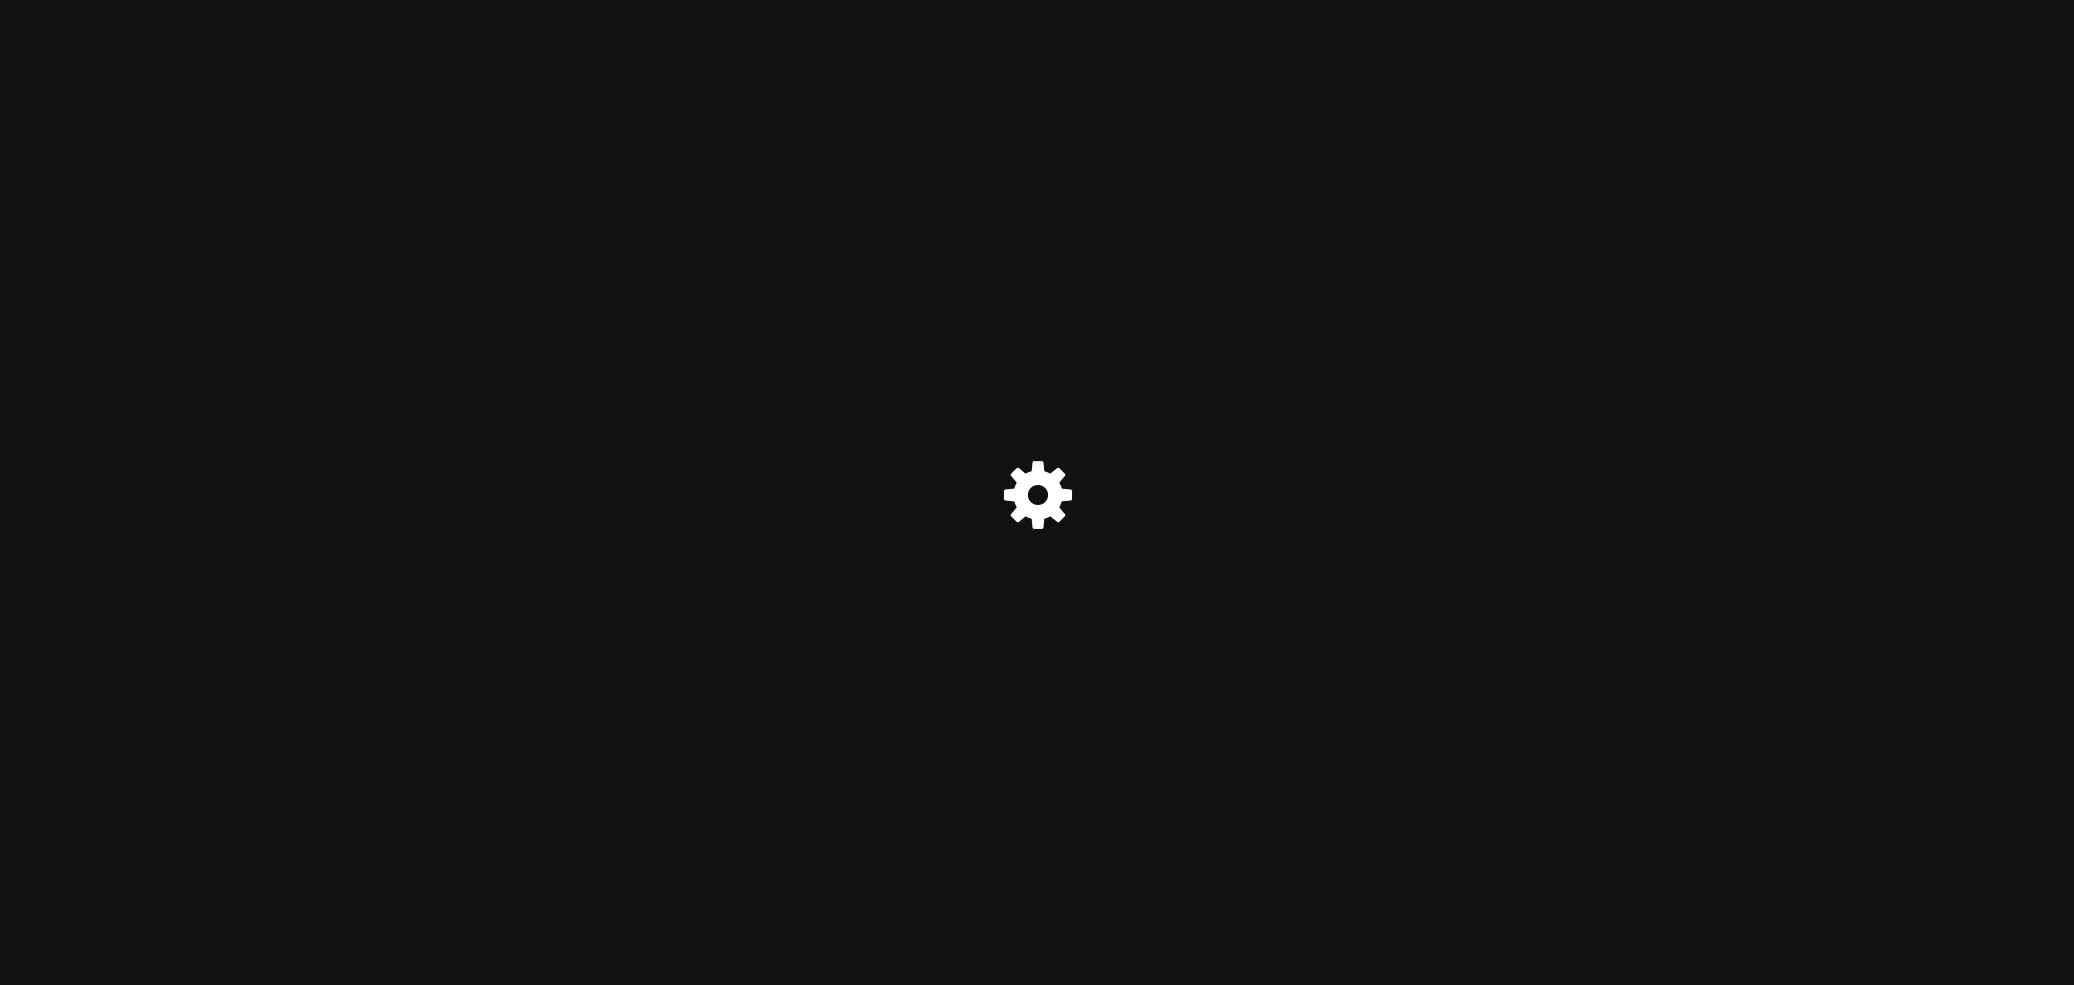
async function draw(canvas) {
  canvas.width = 2074
  canvas.height = 985
  const ctx = canvas.getContext('2d')
  ctx.miterLimit = 4
  ctx.fontKerning = 'normal'
  async function loadImage(src) {
    const img = new Image()
    img.src = src
    await img.decode()
    return img
  }

  ctx.fillStyle = '#111'
  ctx.fillRect(0, 0, 2074, 985)
  ctx.drawImage(await loadImage('image0.png'), 1003, 461, 70, 68)
}

draw(document.querySelector('canvas'))
